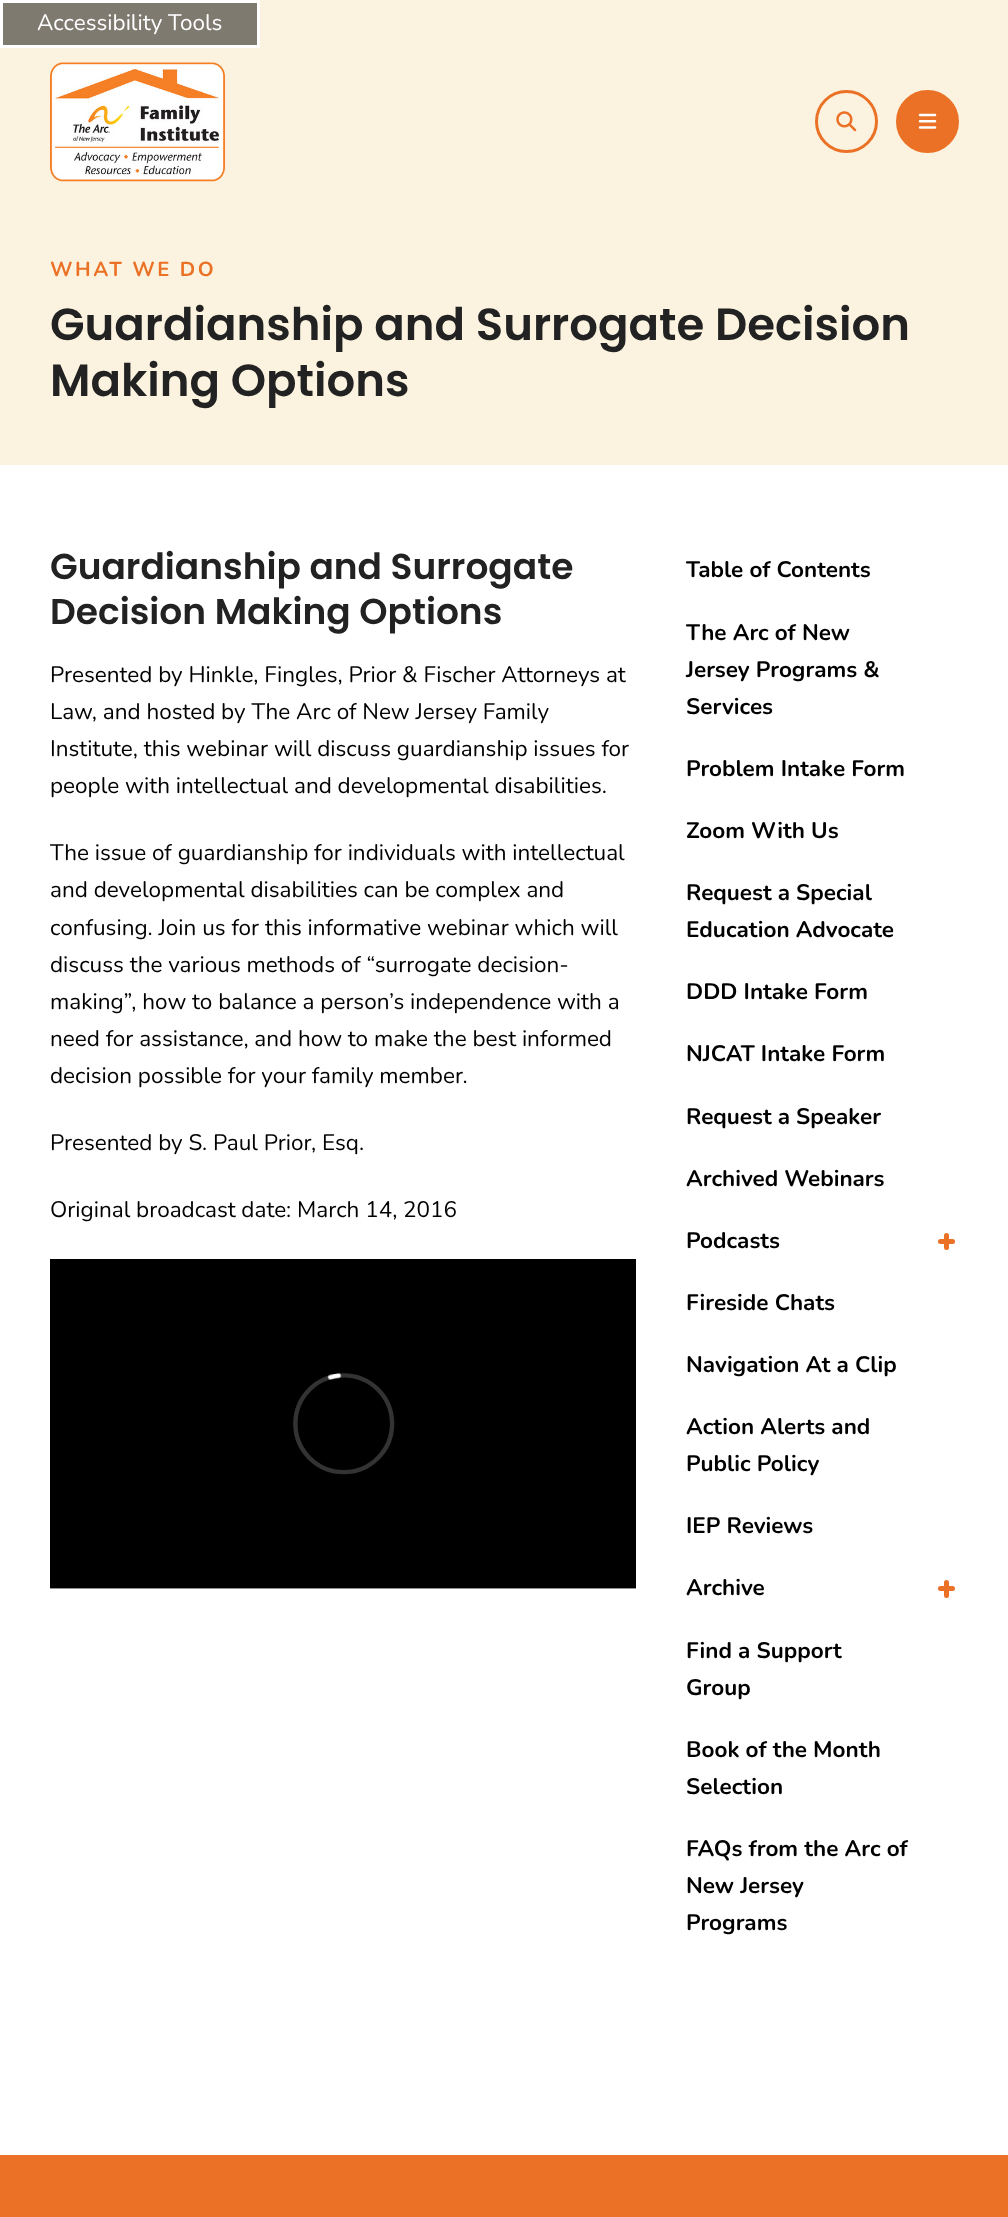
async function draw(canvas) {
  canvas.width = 1008
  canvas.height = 2217
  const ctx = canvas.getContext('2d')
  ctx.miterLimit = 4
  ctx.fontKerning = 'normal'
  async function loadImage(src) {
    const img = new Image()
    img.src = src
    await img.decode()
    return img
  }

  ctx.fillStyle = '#fff'
  ctx.fillRect(0, 0, 1008, 2217)
  ctx.fillStyle = '#fbf3e0'
  ctx.fillRect(0, 0, 1008, 465)
  ctx.fillStyle = '#7e7a70'
  ctx.beginPath()
  ctx.rect(1.5, 1.5, 257, 45)
  ctx.fill()
  ctx.strokeStyle = '#fff'
  ctx.lineWidth = 3
  ctx.stroke()
  ctx.font = '22.5px Nunito'
  ctx.fillStyle = '#fff'
  ctx.fillText('Accessibility Tools', 37, 30)
  ctx.drawImage(await loadImage('image0.png'), 50, 62, 175, 120)
  ctx.beginPath()
  ctx.arc(846.5, 121.5, 30, 0, 2 * Math.PI)
  ctx.strokeStyle = '#ea7125'
  ctx.stroke()
  ctx.drawImage(await loadImage('image1.png'), 836, 111, 21, 21)
  ctx.fillStyle = '#ea7125'
  ctx.beginPath()
  ctx.arc(927.5, 121.5, 30, 0, 2 * Math.PI)
  ctx.fill()
  ctx.stroke()
  ctx.drawImage(await loadImage('image2.png'), 918, 113, 19, 16)
  ctx.letterSpacing = '2.5px'
  ctx.font = 'bold 20.25px Nunito'
  ctx.fillText('WHAT WE DO', 50, 276)
  ctx.letterSpacing = '0px'
  ctx.font = '600 45px Poppins'
  ctx.fillStyle = '#222'
  ctx.fillText('Guardianship and Surrogate Decision', 50, 340)
  ctx.fillText('Making Options', 50, 396)
  ctx.font = '600 36px Poppins'
  ctx.fillText('Guardianship and Surrogate', 50, 579)
  ctx.fillText('Decision Making Options', 50, 624)
  ctx.font = '22.5px Nunito'
  ctx.fillStyle = '#000'
  ctx.fillText('Presented by Hinkle, Fingles, Prior & Fischer Attorneys at', 50, 682)
  ctx.fillText('Law, and hosted by The Arc of New Jersey Family', 50, 719)
  ctx.fillText('Institute, this webinar will discuss guardianship issues for', 50, 756)
  ctx.fillText('people with intellectual and developmental disabilities.', 50, 793)
  ctx.fillText('The issue of guardianship for individuals with intellectual', 50, 860)
  ctx.fillText('and developmental disabilities can be complex and', 50, 897)
  ctx.fillText('confusing. Join us for this informative webinar which will', 50, 935)
  ctx.fillText('discuss the various methods of “surrogate decision-', 50, 972)
  ctx.fillText('making”, how to balance a person’s independence with a', 50, 1009)
  ctx.fillText('need for assistance, and how to make the best informed', 50, 1046)
  ctx.fillText('decision possible for your family member.', 50, 1083)
  ctx.fillText('Presented by S. Paul Prior, Esq.', 50, 1150)
  ctx.fillText('Original broadcast date: March 14, 2016', 50, 1217)
  ctx.drawImage(await loadImage('image3.png'), 50, 1259, 586, 330)
  ctx.font = 'bold 22.5px Nunito'
  ctx.fillText('Table of Contents', 686, 577)
  ctx.fillText('The Arc of New', 686, 640)
  ctx.fillText('Jersey Programs &', 686, 677)
  ctx.fillText('Services', 686, 714)
  ctx.fillText('Problem Intake Form', 686, 776)
  ctx.fillText('Zoom With Us', 686, 838)
  ctx.fillText('Request a Special', 686, 900)
  ctx.fillText('Education Advocate', 686, 937)
  ctx.fillText('DDD Intake Form', 686, 999)
  ctx.fillText('NJCAT Intake Form', 686, 1061)
  ctx.fillText('Request a Speaker', 686, 1124)
  ctx.fillText('Archived Webinars', 686, 1186)
  ctx.fillText('Podcasts', 686, 1248)
  ctx.fillStyle = '#ea7125'
  ctx.beginPath()
  ctx.roundRect(944, 1233, 5, 17, 2.5)
  ctx.fill()
  ctx.beginPath()
  ctx.roundRect(938, 1239, 17, 5, 2.5)
  ctx.fill()
  ctx.fillStyle = '#000'
  ctx.fillText('Fireside Chats', 686, 1310)
  ctx.fillText('Navigation At a Clip', 686, 1372)
  ctx.fillText('Action Alerts and', 686, 1434)
  ctx.fillText('Public Policy', 686, 1471)
  ctx.fillText('IEP Reviews', 686, 1533)
  ctx.fillText('Archive', 686, 1595)
  ctx.fillStyle = '#ea7125'
  ctx.beginPath()
  ctx.roundRect(944, 1580, 5, 18, 2.5)
  ctx.fill()
  ctx.beginPath()
  ctx.roundRect(938, 1586, 17, 5, 2.5)
  ctx.fill()
  ctx.fillStyle = '#000'
  ctx.fillText('Find a Support', 686, 1658)
  ctx.fillText('Group', 686, 1695)
  ctx.fillText('Book of the Month', 686, 1757)
  ctx.fillText('Selection', 686, 1794)
  ctx.fillText('FAQs from the Arc of', 686, 1856)
  ctx.fillText('New Jersey', 686, 1893)
  ctx.fillText('Programs', 686, 1930)
  ctx.fillStyle = '#ea7125'
  ctx.fillRect(0, 2155, 1008, 62)
}

draw(document.querySelector('canvas'))
